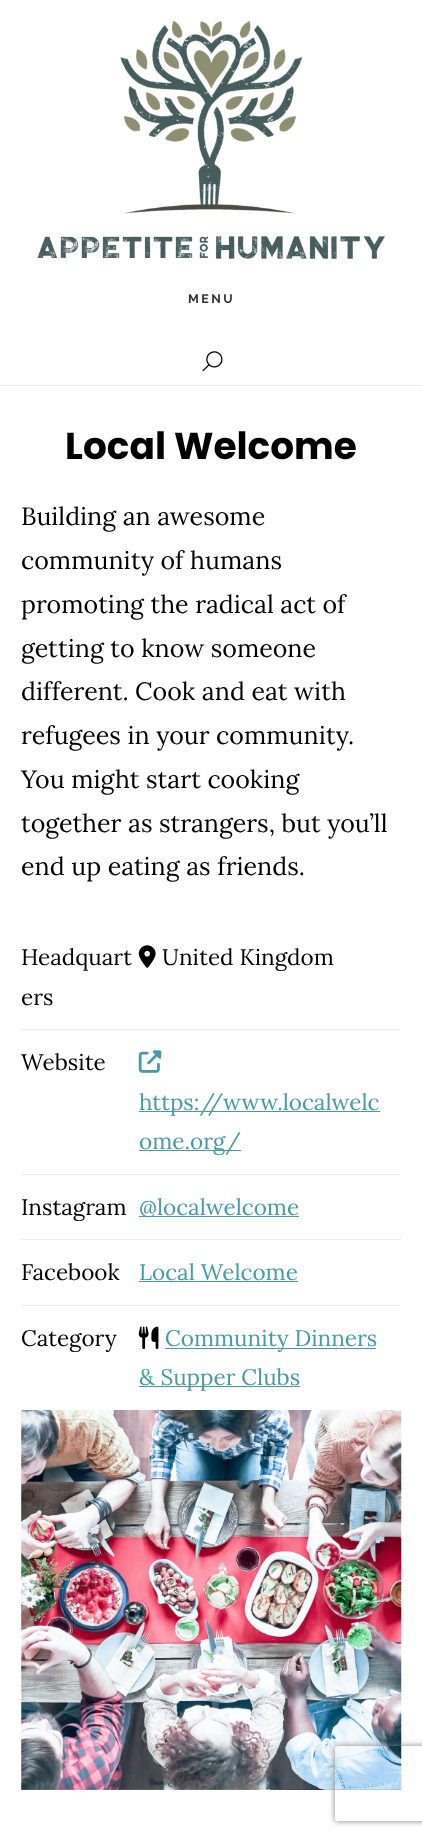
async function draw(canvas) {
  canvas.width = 422
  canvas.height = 1838
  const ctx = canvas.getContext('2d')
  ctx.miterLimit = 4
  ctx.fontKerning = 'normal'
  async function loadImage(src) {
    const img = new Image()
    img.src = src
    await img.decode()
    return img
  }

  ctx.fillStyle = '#fff'
  ctx.fillRect(0, 0, 422, 1838)
  ctx.fillStyle = '#eee'
  ctx.fillRect(0, 385, 422, 1)
  ctx.drawImage(await loadImage('image0.png'), 120, 20, 183, 194)
  ctx.drawImage(await loadImage('image1.png'), 37, 236, 348, 23)
  ctx.letterSpacing = '2.5px'
  ctx.font = '100 12.5px Raleway'
  ctx.fillStyle = '#333'
  ctx.fillText('MENU', 188, 303)
  ctx.drawImage(await loadImage('image2.png'), 202, 351, 21, 21)
  ctx.letterSpacing = '0px'
  ctx.font = 'bold 37.5px Poppins'
  ctx.fillStyle = '#000'
  ctx.fillText('Local Welcome', 65, 459)
  ctx.font = '25px Lora'
  ctx.fillText('Building an awesome', 21, 525)
  ctx.fillText('community of humans', 21, 569)
  ctx.fillText('promoting the radical act of', 21, 613)
  ctx.fillText('getting to know someone', 21, 657)
  ctx.fillText('different. Cook and eat with', 21, 700)
  ctx.fillText('refugees in your community.', 21, 744)
  ctx.fillText('You might start cooking', 21, 788)
  ctx.fillText('together as strangers, but you’ll', 21, 832)
  ctx.fillText('end up eating as friends.', 21, 875)
  ctx.fillStyle = '#eee'
  ctx.fillRect(21, 1029, 380, 1)
  ctx.font = '22.5px Lora'
  ctx.fillStyle = '#000'
  ctx.fillText('Headquart', 21, 965)
  ctx.fillText('ers', 21, 1005)
  ctx.drawImage(await loadImage('image3.png'), 138, 945, 18, 23)
  ctx.fillText('United Kingdom', 162, 965)
  ctx.fillStyle = '#eee'
  ctx.fillRect(21, 1174, 380, 1)
  ctx.fillStyle = '#000'
  ctx.fillText('Website', 21, 1070)
  ctx.drawImage(await loadImage('image4.png'), 138, 1050, 24, 23)
  ctx.fillStyle = '#479aa6'
  ctx.fillRect(139, 1111, 241, 1)
  ctx.fillText('https://www.localwelc', 139, 1110)
  ctx.fillRect(139, 1150, 102, 1)
  ctx.fillText('ome.org/', 139, 1149)
  ctx.fillStyle = '#eee'
  ctx.fillRect(21, 1239, 380, 1)
  ctx.fillStyle = '#000'
  ctx.fillText('Instagram', 21, 1215)
  ctx.fillStyle = '#479aa6'
  ctx.fillRect(139, 1216, 160, 1)
  ctx.fillText('@localwelcome', 139, 1215)
  ctx.fillStyle = '#eee'
  ctx.fillRect(21, 1305, 380, 1)
  ctx.fillStyle = '#000'
  ctx.fillText('Facebook', 21, 1280)
  ctx.fillStyle = '#479aa6'
  ctx.fillText('Local Welcome', 139, 1280)
  ctx.fillRect(139, 1281, 159, 1)
  ctx.fillStyle = '#000'
  ctx.fillText('Category', 21, 1346)
  ctx.drawImage(await loadImage('image5.png'), 138, 1326, 21, 23)
  ctx.fillStyle = '#479aa6'
  ctx.fillRect(165, 1348, 211, 1)
  ctx.fillText('Community Dinners', 165, 1346)
  ctx.fillRect(139, 1386, 161, 1)
  ctx.fillText('& Supper Clubs', 139, 1385)
  ctx.drawImage(await loadImage('image6.png'), 21, 1410, 381, 380)
  ctx.save()
  ctx.beginPath()
  ctx.moveTo(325, 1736)
  ctx.lineTo(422, 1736)
  ctx.lineTo(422, 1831)
  ctx.lineTo(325, 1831)
  ctx.closePath()
  ctx.moveTo(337.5, 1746)
  ctx.lineTo(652.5, 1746)
  ctx.bezierCurveTo(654, 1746, 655, 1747, 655, 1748.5)
  ctx.lineTo(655, 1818.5)
  ctx.bezierCurveTo(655, 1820, 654, 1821, 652.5, 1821)
  ctx.lineTo(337.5, 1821)
  ctx.bezierCurveTo(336, 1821, 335, 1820, 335, 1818.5)
  ctx.lineTo(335, 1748.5)
  ctx.bezierCurveTo(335, 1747, 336, 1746, 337.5, 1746)
  ctx.closePath()
  ctx.clip('evenodd')
  ctx.fillStyle = '#808080'
  ctx.filter = 'blur(3px)'
  ctx.beginPath()
  ctx.roundRect(335, 1746, 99, 75, 2.5)
  ctx.fill()
  ctx.filter = 'none'
  ctx.restore()
}

draw(document.querySelector('canvas'))
